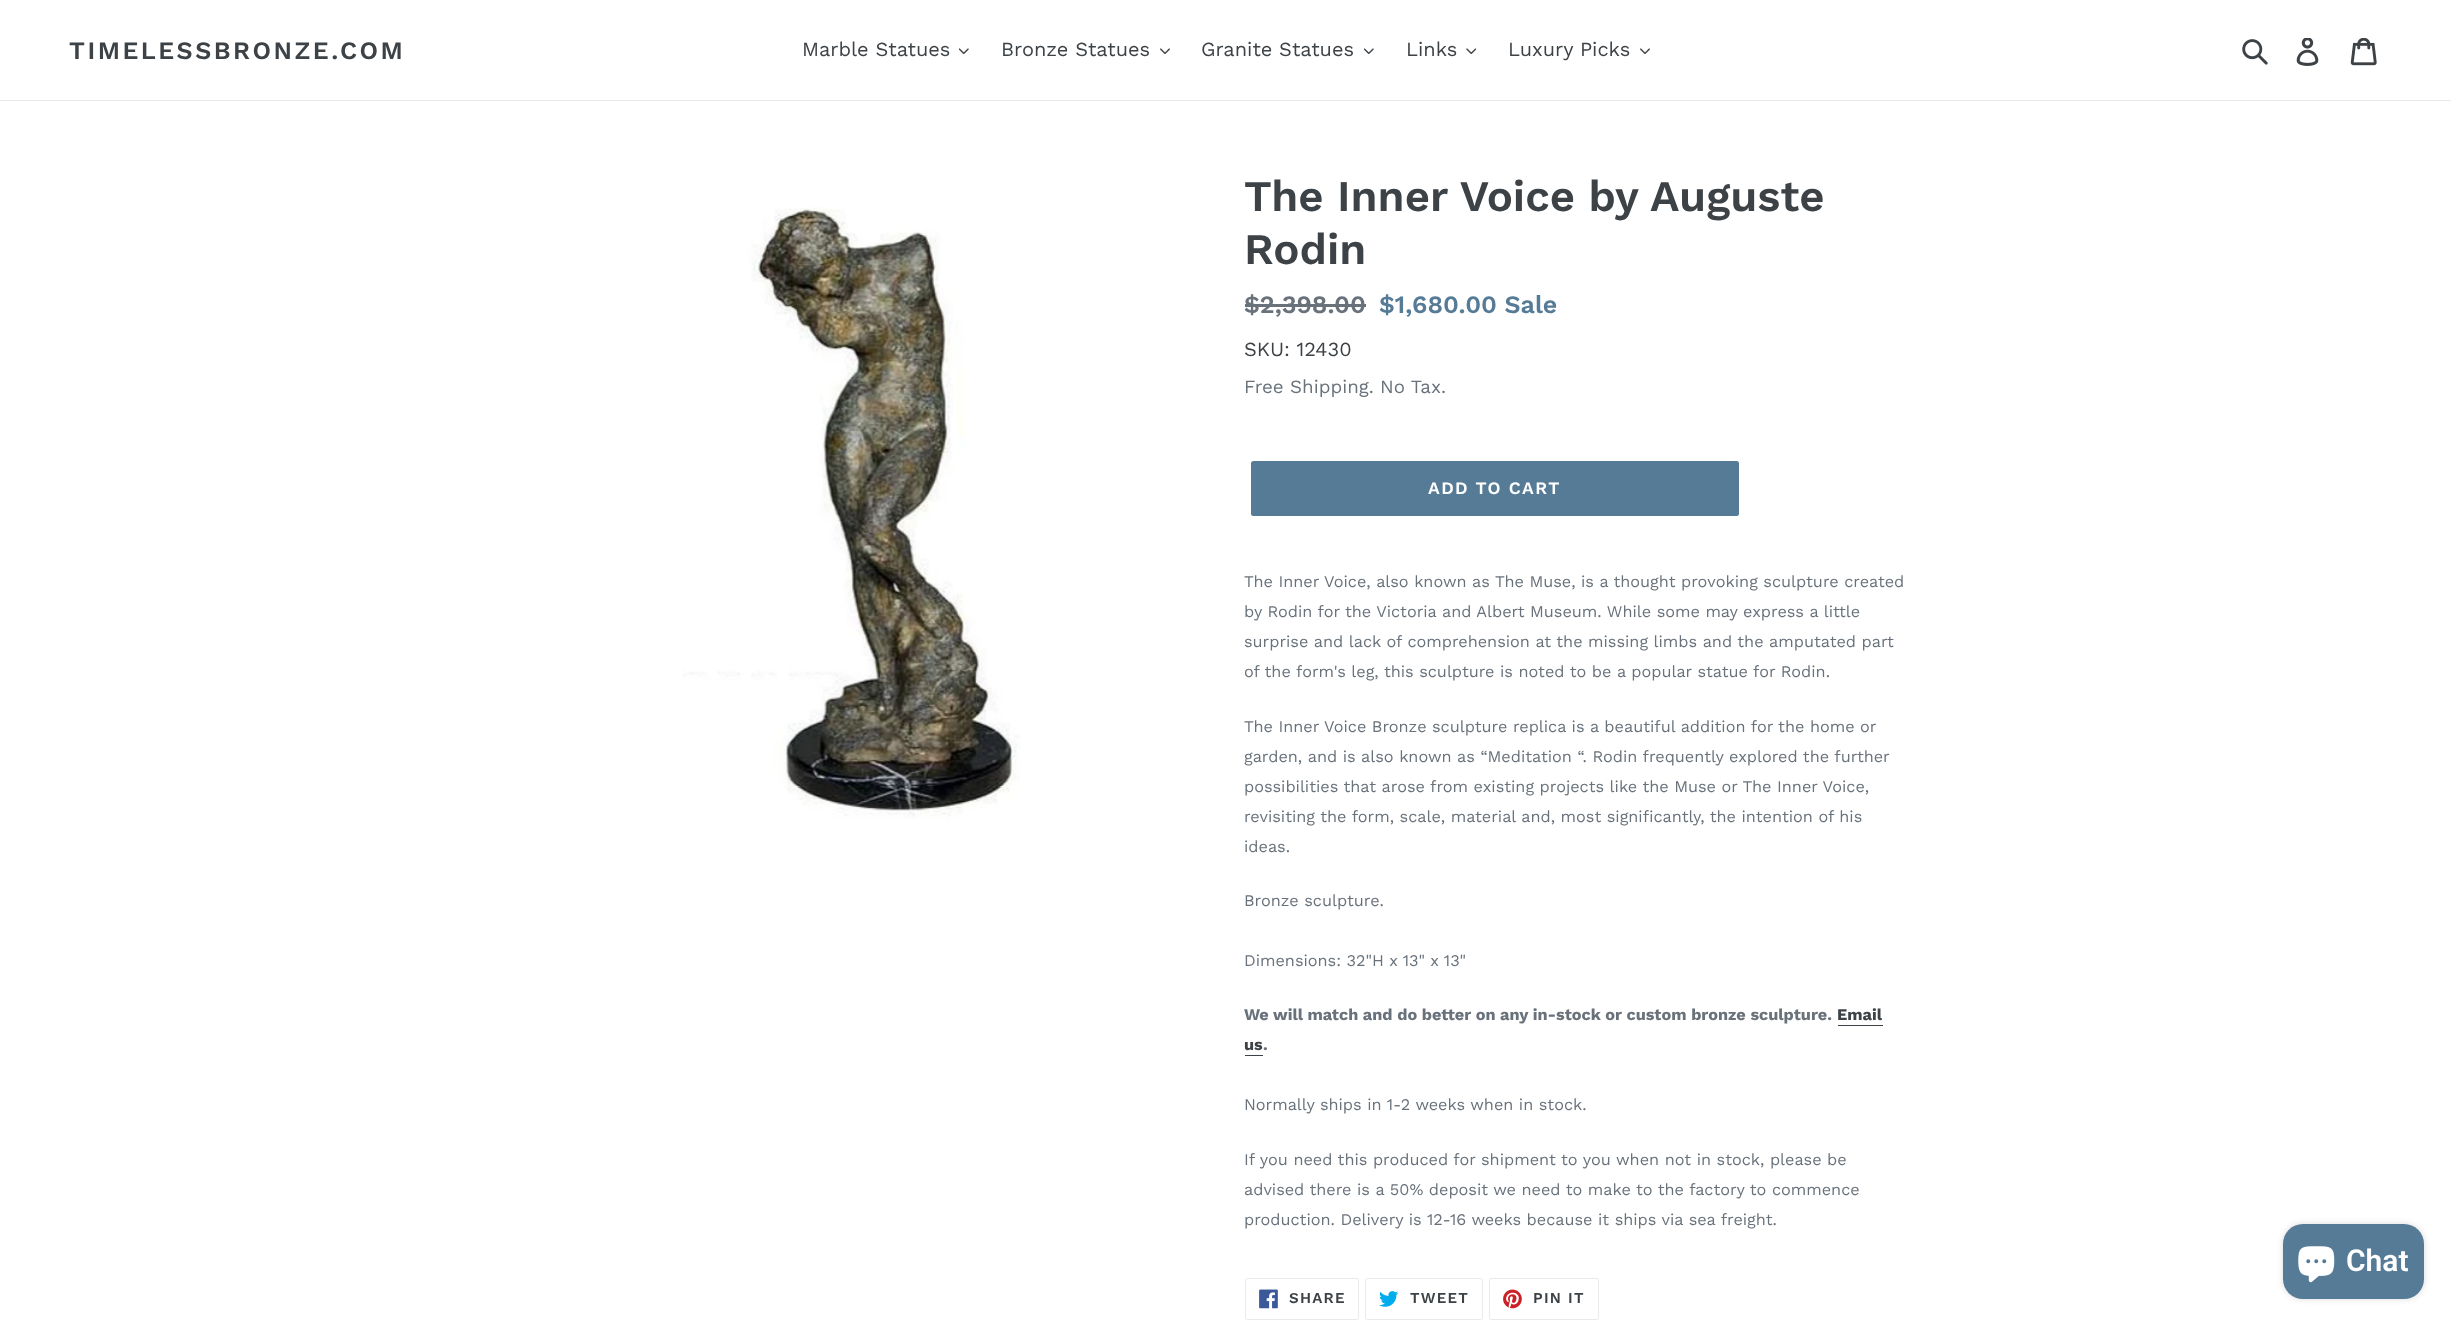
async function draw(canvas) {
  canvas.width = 2451
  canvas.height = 1325
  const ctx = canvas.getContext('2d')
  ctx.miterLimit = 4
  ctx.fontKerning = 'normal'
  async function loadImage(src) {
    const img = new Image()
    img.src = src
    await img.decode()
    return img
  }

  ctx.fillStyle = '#fff'
  ctx.fillRect(0, 0, 2451, 1325)
  ctx.fillStyle = '#e8e9eb'
  ctx.fillRect(0, 100, 2451, 1)
  ctx.letterSpacing = '2.5px'
  ctx.font = '600 25px Work Sans'
  ctx.fillStyle = '#3d4246'
  ctx.fillText('TIMELESSBRONZE.COM', 69, 59)
  ctx.letterSpacing = '0px'
  ctx.font = '20px Work Sans'
  ctx.fillText('Marble Statues', 802, 56)
  ctx.drawImage(await loadImage('image0.png'), 959, 48, 10, 7)
  ctx.fillText('Bronze Statues', 1001, 56)
  ctx.drawImage(await loadImage('image1.png'), 1160, 48, 10, 6)
  ctx.fillText('Granite Statues', 1201, 56)
  ctx.drawImage(await loadImage('image0.png'), 1364, 48, 10, 7)
  ctx.fillText('Links', 1406, 56)
  ctx.drawImage(await loadImage('image2.png'), 1466, 48, 10, 7)
  ctx.fillText('Luxury Picks', 1508, 56)
  ctx.drawImage(await loadImage('image1.png'), 1640, 48, 10, 6)
  ctx.drawImage(await loadImage('image3.png'), 2242, 39, 26, 26)
  ctx.drawImage(await loadImage('image4.png'), 2296, 38, 23, 28)
  ctx.drawImage(await loadImage('image5.png'), 2350, 38, 27, 28)
  ctx.drawImage(await loadImage('image6.png'), 683, 207, 337, 612)
  ctx.font = '600 43.75px Work Sans'
  ctx.fillText('The Inner Voice by Auguste', 1244, 211)
  ctx.fillText('Rodin', 1244, 264)
  ctx.font = '600 25px Work Sans'
  ctx.fillStyle = '#69727b'
  ctx.fillText('$2,398.00', 1244, 313)
  ctx.fillRect(1245, 304, 121, 3)
  ctx.fillStyle = '#557b97'
  ctx.fillText('$1,680.00 Sale', 1379, 313)
  ctx.font = '20px Work Sans'
  ctx.fillStyle = '#3d4246'
  ctx.fillText('SKU: 12430', 1244, 356)
  ctx.font = '18.75px Work Sans'
  ctx.fillStyle = '#69727b'
  ctx.fillText('Free Shipping. No Tax.', 1244, 393)
  ctx.fillStyle = '#557b97'
  ctx.beginPath()
  ctx.roundRect(1251, 461, 488, 55, 2.5)
  ctx.fill()
  ctx.letterSpacing = '1.4px'
  ctx.font = '600 17.5px Work Sans'
  ctx.fillStyle = '#fff'
  ctx.fillText('ADD TO CART', 1428, 494)
  ctx.letterSpacing = '0px'
  ctx.font = '16.25px Work Sans'
  ctx.fillStyle = '#69727b'
  ctx.fillText('The Inner Voice, also known as The Muse, is a thought provoking sculpture created', 1244, 587)
  ctx.fillText('by Rodin for the Victoria and Albert Museum. While some may express a little', 1244, 617)
  ctx.fillText('surprise and lack of comprehension at the missing limbs and the amputated part', 1244, 647)
  ctx.fillText('of the form\'s leg, this sculpture is noted to be a popular statue for Rodin.', 1244, 677)
  ctx.fillText('The Inner Voice Bronze sculpture replica is a beautiful addition for the home or', 1244, 732)
  ctx.fillText('garden, and is also known as “Meditation “. Rodin frequently explored the further', 1244, 762)
  ctx.fillText('possibilities that arose from existing projects like the Muse or The Inner Voice,', 1244, 792)
  ctx.fillText('revisiting the form, scale, material and, most significantly, the intention of his', 1244, 822)
  ctx.fillText('ideas.', 1244, 852)
  ctx.fillText('Bronze sculpture.', 1244, 906)
  ctx.fillText('Dimensions: 32"H x 13" x 13"', 1244, 966)
  ctx.font = 'bold 16.25px Work Sans'
  ctx.fillText('We will match and do better on any in-stock or custom bronze sculpture.', 1244, 1020)
  ctx.fillStyle = '#3d4246'
  ctx.fillText('Email', 1837, 1020)
  ctx.fillRect(1838, 1025, 45, 1)
  ctx.fillText('us', 1244, 1050)
  ctx.fillStyle = '#69727b'
  ctx.fillText('.', 1263, 1050)
  ctx.fillStyle = '#3d4246'
  ctx.fillRect(1245, 1055, 18, 1)
  ctx.font = '16.25px Work Sans'
  ctx.fillStyle = '#69727b'
  ctx.fillText('Normally ships in 1-2 weeks when in stock.', 1244, 1110)
  ctx.fillText('If you need this produced for shipment to you when not in stock, please be', 1244, 1165)
  ctx.fillText('advised there is a 50% deposit we need to make to the factory to commence', 1244, 1195)
  ctx.fillText('production. Delivery is 12-16 weeks because it ships via sea freight.', 1244, 1225)
  ctx.beginPath()
  ctx.roundRect(1245.5, 1278.5, 113, 41, 2)
  ctx.strokeStyle = '#e8e9eb'
  ctx.stroke()
  ctx.drawImage(await loadImage('image7.png'), 1259, 1289, 19, 20)
  ctx.letterSpacing = '1.25px'
  ctx.font = '600 15px Work Sans'
  ctx.fillStyle = '#3d4246'
  ctx.fillText('SHARE', 1289, 1303)
  ctx.beginPath()
  ctx.roundRect(1365.5, 1278.5, 117, 41, 2)
  ctx.stroke()
  ctx.drawImage(await loadImage('image8.png'), 1379, 1291, 20, 16)
  ctx.fillText('TWEET', 1410, 1303)
  ctx.beginPath()
  ctx.roundRect(1489.5, 1278.5, 109, 41, 2)
  ctx.stroke()
  ctx.drawImage(await loadImage('image9.png'), 1503, 1289, 19, 20)
  ctx.fillText('PIN IT', 1533, 1303)
  ctx.fillStyle = '#00000026'
  ctx.filter = 'blur(3px)'
  ctx.beginPath()
  ctx.roundRect(2283, 1224, 141, 75, 20)
  ctx.fill()
  ctx.filter = 'none'
  ctx.fillStyle = '#557b97'
  ctx.beginPath()
  ctx.roundRect(2283, 1224, 141, 75, 20)
  ctx.fill()
  ctx.drawImage(await loadImage('image10.png'), 2298, 1246, 37, 37)
  ctx.letterSpacing = '0px'
  ctx.font = '600 30px Roboto'
  ctx.fillStyle = '#fff'
  ctx.fillText('Chat', 2346, 1271)
}

draw(document.querySelector('canvas'))
